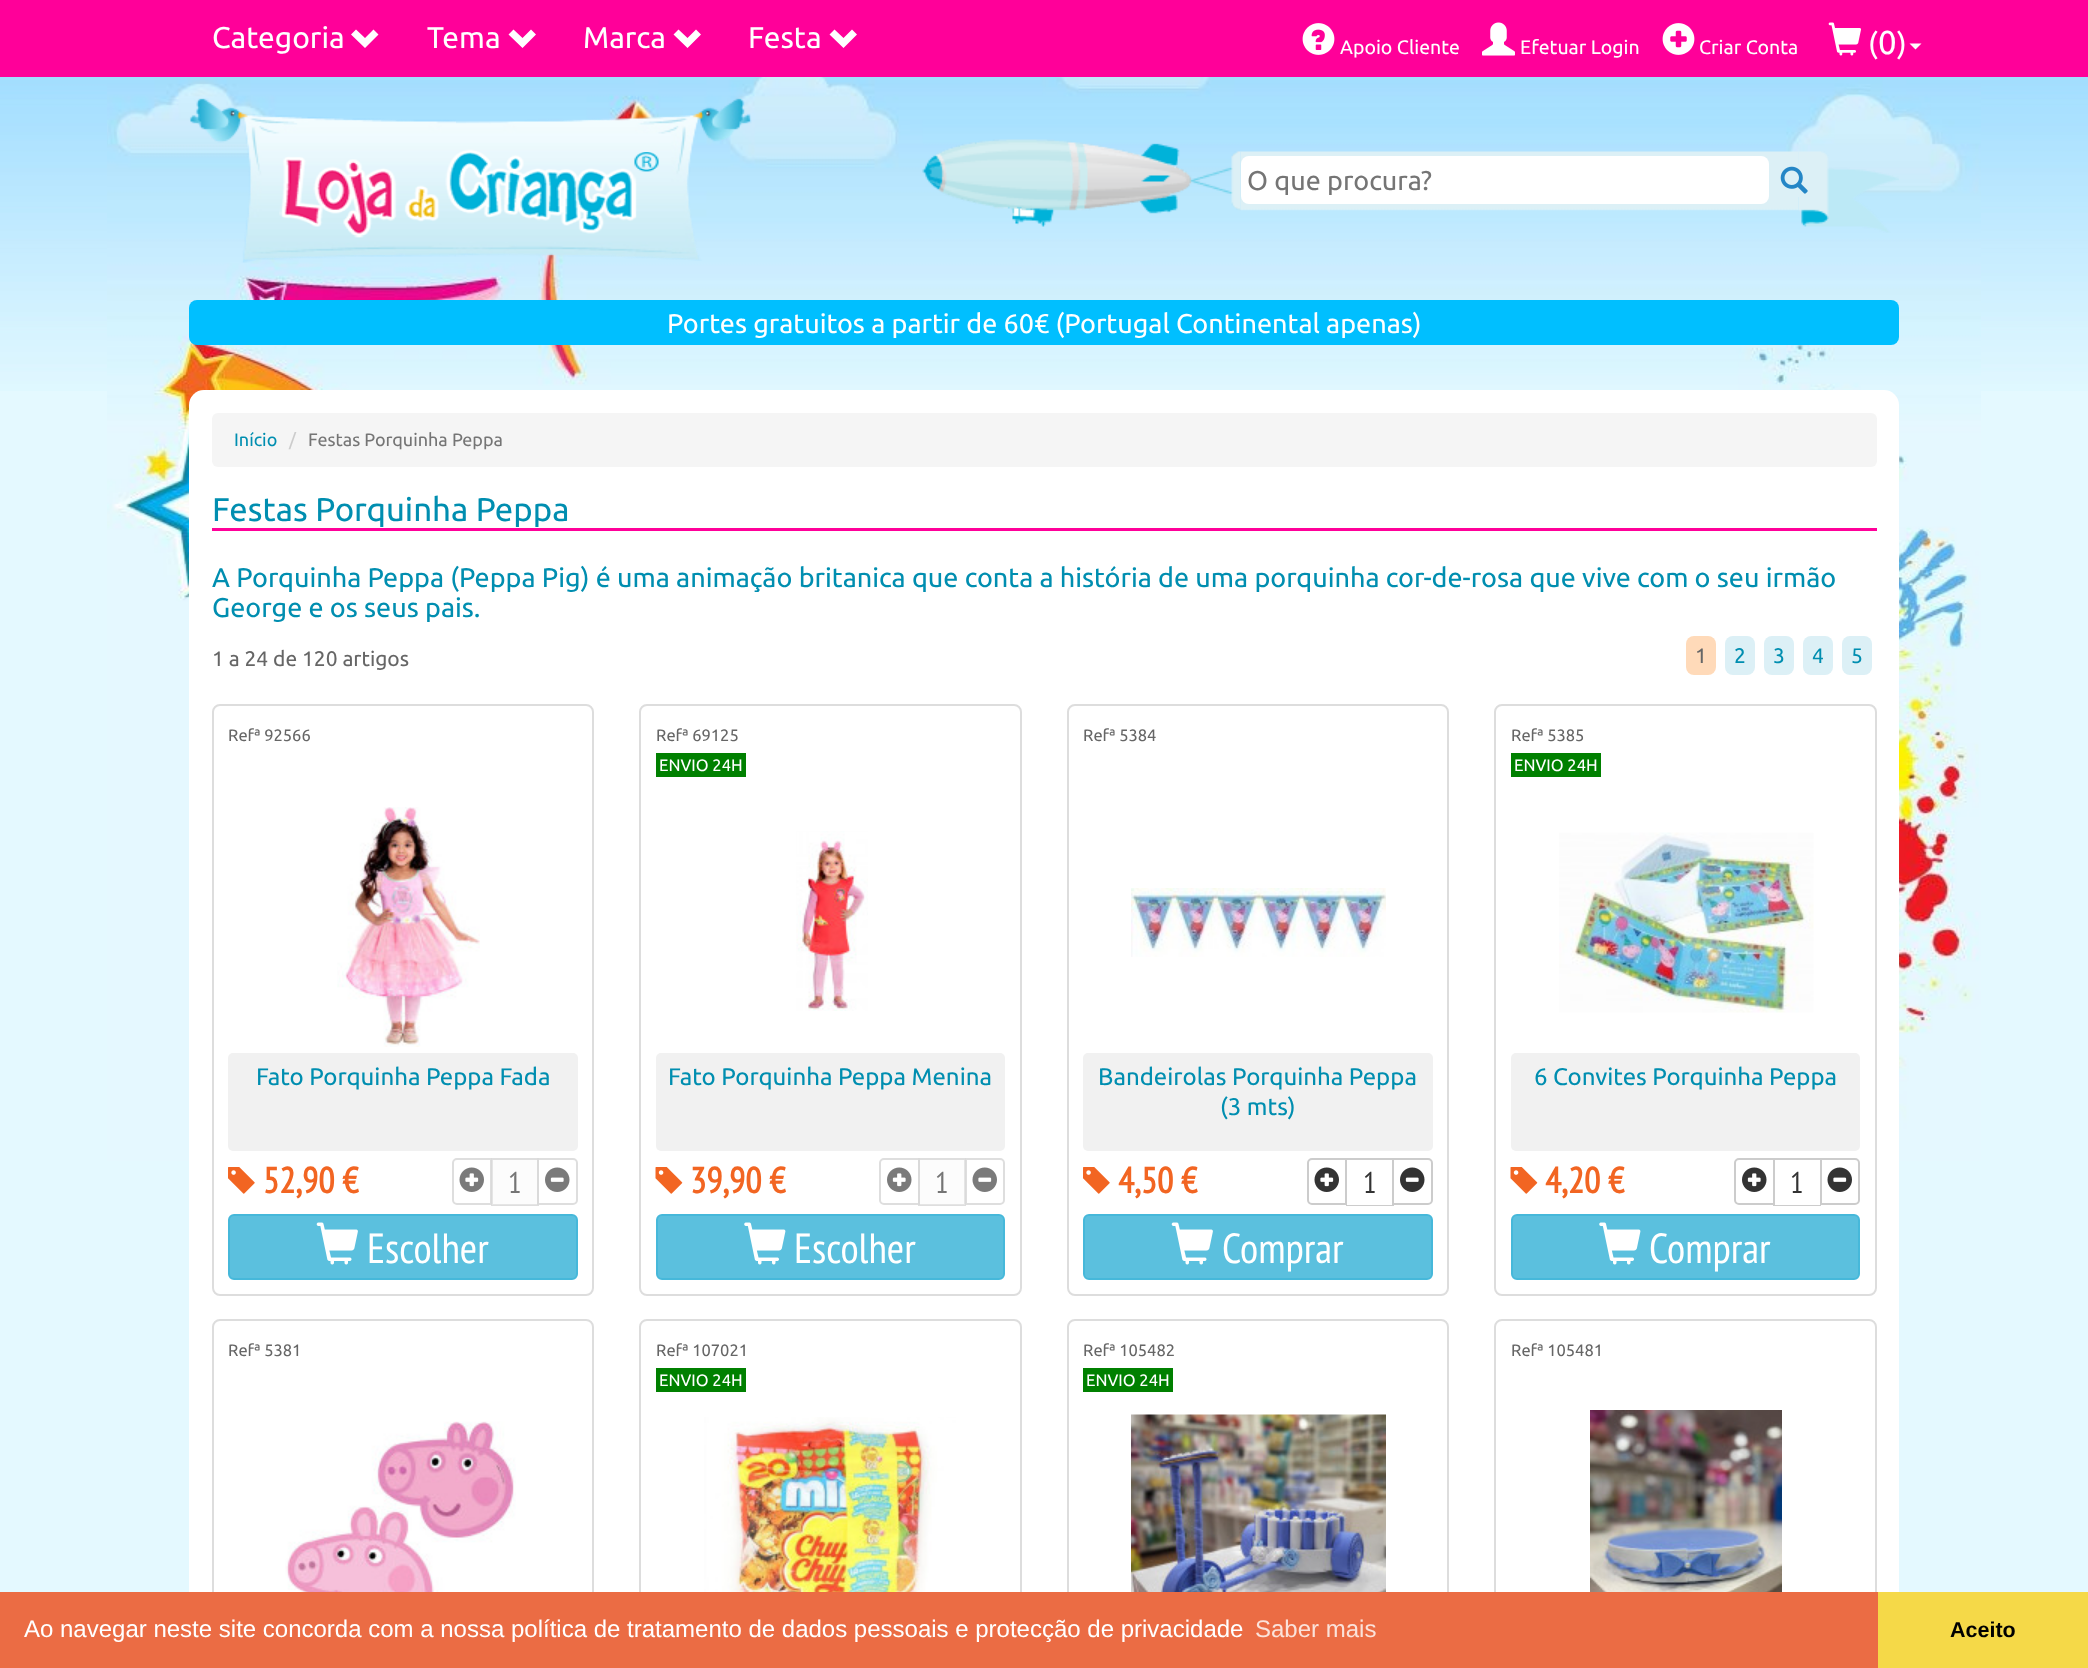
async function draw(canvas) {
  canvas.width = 2088
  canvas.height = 1668
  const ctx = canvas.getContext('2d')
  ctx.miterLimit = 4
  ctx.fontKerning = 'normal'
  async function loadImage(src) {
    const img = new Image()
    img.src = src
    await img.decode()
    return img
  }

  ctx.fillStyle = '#e4f9ff'
  ctx.fillRect(0, 0, 2088, 1668)
  ctx.drawImage(await loadImage('image0.png'), 0, 77, 2088, 314)
  ctx.drawImage(await loadImage('image1.png'), 107, 77, 1874, 1084)
  ctx.fillStyle = '#f09'
  ctx.fillRect(0, 0, 2088, 77)
  ctx.font = '30px Ubuntu'
  ctx.fillStyle = '#fff'
  ctx.fillText('Categoria', 212, 48)
  ctx.beginPath()
  ctx.moveTo(378.5, 34.5)
  ctx.lineTo(365, 48)
  ctx.lineTo(351, 34.5)
  ctx.lineTo(356, 29.5)
  ctx.lineTo(365, 38)
  ctx.lineTo(373.5, 29.5)
  ctx.closePath()
  ctx.fill()
  ctx.fillText('Tema', 427, 48)
  ctx.beginPath()
  ctx.moveTo(536, 34.5)
  ctx.lineTo(522.5, 48)
  ctx.lineTo(508.5, 34.5)
  ctx.lineTo(513.5, 29.5)
  ctx.lineTo(522.5, 38)
  ctx.lineTo(531, 29.5)
  ctx.closePath()
  ctx.fill()
  ctx.fillText('Marca', 583, 48)
  ctx.beginPath()
  ctx.moveTo(701, 34.5)
  ctx.lineTo(687.5, 48)
  ctx.lineTo(673.5, 34.5)
  ctx.lineTo(678.5, 29.5)
  ctx.lineTo(687.5, 38)
  ctx.lineTo(696, 29.5)
  ctx.closePath()
  ctx.fill()
  ctx.fillText('Festa', 748, 48)
  ctx.beginPath()
  ctx.moveTo(857, 34.5)
  ctx.lineTo(843.5, 48)
  ctx.lineTo(829.5, 34.5)
  ctx.lineTo(834.5, 29.5)
  ctx.lineTo(843.5, 38)
  ctx.lineTo(852, 29.5)
  ctx.closePath()
  ctx.fill()
  ctx.drawImage(await loadImage('image2.png'), 1302, 23, 33, 32)
  ctx.font = '19.5px Ubuntu'
  ctx.fillText('Apoio Cliente', 1340, 54)
  ctx.drawImage(await loadImage('image3.png'), 1482, 22, 33, 34)
  ctx.fillText('Efetuar Login', 1520, 54)
  ctx.drawImage(await loadImage('image4.png'), 1662, 23, 33, 32)
  ctx.fillText('Criar Conta', 1699, 54)
  ctx.drawImage(await loadImage('image5.png'), 1828, 22, 33, 34)
  ctx.font = '30px Ubuntu'
  ctx.fillText('(', 1868, 54)
  ctx.font = '33px Ubuntu'
  ctx.fillText('0', 1878, 54)
  ctx.font = '30px Ubuntu'
  ctx.fillText(')', 1897, 54)
  ctx.beginPath()
  ctx.moveTo(1909.5, 43.5)
  ctx.lineTo(1921.5, 43.5)
  ctx.lineTo(1915.5, 49.5)
  ctx.closePath()
  ctx.fill()
  ctx.drawImage(await loadImage('image6.png'), 189, 98, 267, 165)
  ctx.drawImage(await loadImage('image7.png'), 456, 97, 296, 164)
  ctx.drawImage(await loadImage('image8.png'), 279, 149, 380, 89)
  ctx.drawImage(await loadImage('image9.png'), 922, 139, 319, 88)
  ctx.drawImage(await loadImage('image10.png'), 1240, 151, 559, 60)
  ctx.beginPath()
  ctx.roundRect(1241, 156, 528, 48, 8)
  ctx.fill()
  ctx.font = '27px Ubuntu'
  ctx.fillStyle = '#757575'
  ctx.fillText('O que procura?', 1247, 190)
  ctx.drawImage(await loadImage('image12.png'), 1798, 151, 101, 82)
  ctx.fillStyle = '#dcf0f6'
  ctx.fillRect(1798, 165, 1, 32)
  ctx.drawImage(await loadImage('image11.png'), 1780, 166, 28, 28)
  ctx.fillStyle = '#00bfff'
  ctx.beginPath()
  ctx.roundRect(189, 300, 1710, 45, 8)
  ctx.fill()
  ctx.fillStyle = '#fff'
  ctx.fillText('Portes gratuitos a partir de 60€ (Portugal Continental apenas)', 667, 333)
  ctx.beginPath()
  ctx.roundRect(189, 390, 1710, 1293, 15)
  ctx.fill()
  ctx.fillStyle = '#f5f5f5'
  ctx.beginPath()
  ctx.roundRect(212, 413, 1665, 54, 6)
  ctx.fill()
  ctx.font = '18px Ubuntu'
  ctx.fillStyle = '#008eb0'
  ctx.fillText('Início', 234, 446)
  ctx.fillStyle = '#ccc'
  ctx.fillText('/', 289, 446)
  ctx.fillStyle = '#757575'
  ctx.fillText('Festas Porquinha Peppa', 308, 446)
  ctx.fillStyle = '#f09'
  ctx.fillRect(212, 528, 1665, 3)
  ctx.font = '33px Ubuntu'
  ctx.fillStyle = '#008eb0'
  ctx.fillText('Festas Porquinha Peppa', 212, 521)
  ctx.font = '27px Ubuntu'
  ctx.fillText('A Porquinha Peppa (Peppa Pig) é uma animação britanica que conta a história de uma porquinha cor-de-rosa que vive com o seu irmão', 212, 587)
  ctx.fillText('George e os seus pais.', 212, 617)
  ctx.font = '21px Ubuntu'
  ctx.fillStyle = '#666'
  ctx.fillText('1 a 24 de 120 artigos', 212, 666)
  ctx.fillStyle = '#ffdab9'
  ctx.beginPath()
  ctx.roundRect(1686, 636, 30, 39, 8)
  ctx.fill()
  ctx.fillStyle = '#666'
  ctx.fillText('1', 1695, 663)
  ctx.fillStyle = '#dcf0f6'
  ctx.beginPath()
  ctx.roundRect(1725, 636, 30, 39, 8)
  ctx.fill()
  ctx.fillStyle = '#008eb0'
  ctx.fillText('2', 1734, 663)
  ctx.fillStyle = '#dcf0f6'
  ctx.beginPath()
  ctx.roundRect(1764, 636, 30, 39, 8)
  ctx.fill()
  ctx.fillStyle = '#008eb0'
  ctx.fillText('3', 1773, 663)
  ctx.fillStyle = '#dcf0f6'
  ctx.beginPath()
  ctx.roundRect(1803, 636, 30, 39, 8)
  ctx.fill()
  ctx.fillStyle = '#008eb0'
  ctx.fillText('4', 1812, 663)
  ctx.fillStyle = '#dcf0f6'
  ctx.beginPath()
  ctx.roundRect(1842, 636, 30, 39, 8)
  ctx.fill()
  ctx.fillStyle = '#008eb0'
  ctx.fillText('5', 1851, 663)
  ctx.beginPath()
  ctx.roundRect(213, 705, 380, 590, 7)
  ctx.strokeStyle = '#ddd'
  ctx.lineWidth = 2
  ctx.stroke()
  ctx.font = '16.5px Ubuntu'
  ctx.fillStyle = '#666'
  ctx.fillText('Refª 92566', 228, 741)
  ctx.drawImage(await loadImage('image13.png'), 337, 807, 143, 240)
  ctx.fillStyle = '#f1f1f1'
  ctx.beginPath()
  ctx.roundRect(228, 1053, 350, 98, 5)
  ctx.fill()
  ctx.font = '24px Ubuntu'
  ctx.fillStyle = '#008eb0'
  ctx.fillText('Fato Porquinha Peppa Fada', 256, 1085)
  ctx.drawImage(await loadImage('image14.png'), 228, 1167, 27, 27)
  ctx.font = 'bold 36px PT Sans Narrow'
  ctx.fillStyle = '#f26522'
  ctx.fillText('52,90 €', 263, 1193)
  ctx.beginPath()
  ctx.roundRect(453, 1159, 38, 45, [4, 0, 0, 4])
  ctx.strokeStyle = '#dedede'
  ctx.stroke()
  ctx.drawImage(await loadImage('image15.png'), 459, 1167, 25, 25)
  ctx.fillStyle = '#ffffffa6'
  ctx.fillRect(491, 1158, 1, 47)
  ctx.strokeStyle = '#cccccca6'
  ctx.strokeRect(492, 1159, 46, 46)
  ctx.fillStyle = '#f5f5f54d'
  ctx.fillRect(492, 1160, 45, 45)
  ctx.font = '30px PT Sans Narrow'
  ctx.fillStyle = '#757575'
  ctx.fillText('1', 508, 1193)
  ctx.fillStyle = '#ffffffa6'
  ctx.beginPath()
  ctx.roundRect(537, 1158, 41, 47, [0, 5, 5, 0])
  ctx.fill()
  ctx.beginPath()
  ctx.roundRect(538, 1159, 39, 45, [0, 4, 4, 0])
  ctx.stroke()
  ctx.drawImage(await loadImage('image16.png'), 545, 1167, 25, 25)
  ctx.fillStyle = '#5bc0de'
  ctx.beginPath()
  ctx.roundRect(229, 1215, 348, 64, 5)
  ctx.fill()
  ctx.strokeStyle = '#46b8da'
  ctx.stroke()
  ctx.drawImage(await loadImage('image17.png'), 316, 1222, 42, 43)
  ctx.font = '42px PT Sans Narrow'
  ctx.fillStyle = '#fff'
  ctx.fillText('Escolher', 367, 1263)
  ctx.beginPath()
  ctx.roundRect(640, 705, 381, 590, 7)
  ctx.strokeStyle = '#ddd'
  ctx.stroke()
  ctx.font = '16.5px Ubuntu'
  ctx.fillStyle = '#666'
  ctx.fillText('Refª 69125', 656, 741)
  ctx.fillStyle = '#008000'
  ctx.fillRect(656, 753, 90, 24)
  ctx.fillStyle = '#fff'
  ctx.fillText('ENVIO 24H', 659, 771)
  ctx.drawImage(await loadImage('image18.png'), 796, 831, 72, 180)
  ctx.fillStyle = '#f1f1f1'
  ctx.beginPath()
  ctx.roundRect(656, 1053, 349, 98, 5)
  ctx.fill()
  ctx.font = '24px Ubuntu'
  ctx.fillStyle = '#008eb0'
  ctx.fillText('Fato Porquinha Peppa Menina', 668, 1085)
  ctx.drawImage(await loadImage('image19.png'), 655, 1167, 28, 27)
  ctx.font = 'bold 36px PT Sans Narrow'
  ctx.fillStyle = '#f26522'
  ctx.fillText('39,90 €', 690, 1193)
  ctx.beginPath()
  ctx.roundRect(880, 1159, 39, 45, [4, 0, 0, 4])
  ctx.strokeStyle = '#dedede'
  ctx.stroke()
  ctx.drawImage(await loadImage('image20.png'), 887, 1167, 25, 25)
  ctx.fillStyle = '#ffffffa6'
  ctx.fillRect(918, 1158, 2, 47)
  ctx.strokeStyle = '#cccccca6'
  ctx.strokeRect(919, 1159, 46, 46)
  ctx.fillStyle = '#f5f5f54d'
  ctx.fillRect(920, 1160, 45, 45)
  ctx.font = '30px PT Sans Narrow'
  ctx.fillStyle = '#757575'
  ctx.fillText('1', 935, 1193)
  ctx.fillStyle = '#ffffffa6'
  ctx.beginPath()
  ctx.roundRect(965, 1158, 40, 47, [0, 5, 5, 0])
  ctx.fill()
  ctx.beginPath()
  ctx.roundRect(966, 1159, 38, 45, [0, 4, 4, 0])
  ctx.stroke()
  ctx.drawImage(await loadImage('image21.png'), 972, 1167, 25, 25)
  ctx.fillStyle = '#5bc0de'
  ctx.beginPath()
  ctx.roundRect(657, 1215, 347, 64, 5)
  ctx.fill()
  ctx.strokeStyle = '#46b8da'
  ctx.stroke()
  ctx.drawImage(await loadImage('image22.png'), 744, 1222, 42, 43)
  ctx.font = '42px PT Sans Narrow'
  ctx.fillStyle = '#fff'
  ctx.fillText('Escolher', 794, 1263)
  ctx.beginPath()
  ctx.roundRect(1068, 705, 380, 590, 7)
  ctx.strokeStyle = '#ddd'
  ctx.stroke()
  ctx.font = '16.5px Ubuntu'
  ctx.fillStyle = '#666'
  ctx.fillText('Refª 5384', 1083, 741)
  ctx.drawImage(await loadImage('image23.png'), 1131, 888, 255, 69)
  ctx.fillStyle = '#f1f1f1'
  ctx.beginPath()
  ctx.roundRect(1083, 1053, 350, 98, 5)
  ctx.fill()
  ctx.font = '24px Ubuntu'
  ctx.fillStyle = '#008eb0'
  ctx.fillText('Bandeirolas Porquinha Peppa', 1098, 1085)
  ctx.fillText('(3 mts)', 1220, 1115)
  ctx.drawImage(await loadImage('image14.png'), 1083, 1167, 27, 27)
  ctx.font = 'bold 36px PT Sans Narrow'
  ctx.fillStyle = '#f26522'
  ctx.fillText('4,50 €', 1118, 1193)
  ctx.beginPath()
  ctx.roundRect(1308, 1159, 38, 45, [4, 0, 0, 4])
  ctx.strokeStyle = '#ccc'
  ctx.stroke()
  ctx.drawImage(await loadImage('image24.png'), 1314, 1167, 25, 25)
  ctx.strokeRect(1347, 1159, 46, 46)
  ctx.fillStyle = '#fff'
  ctx.fillRect(1347, 1160, 45, 45)
  ctx.font = '30px PT Sans Narrow'
  ctx.fillStyle = '#333'
  ctx.fillText('1', 1363, 1193)
  ctx.fillStyle = '#fff'
  ctx.beginPath()
  ctx.roundRect(1393, 1159, 39, 45, [0, 4, 4, 0])
  ctx.fill()
  ctx.stroke()
  ctx.drawImage(await loadImage('image25.png'), 1400, 1167, 25, 25)
  ctx.fillStyle = '#5bc0de'
  ctx.beginPath()
  ctx.roundRect(1084, 1215, 348, 64, 5)
  ctx.fill()
  ctx.strokeStyle = '#46b8da'
  ctx.stroke()
  ctx.drawImage(await loadImage('image17.png'), 1171, 1222, 42, 43)
  ctx.font = '42px PT Sans Narrow'
  ctx.fillStyle = '#fff'
  ctx.fillText('Comprar', 1222, 1263)
  ctx.beginPath()
  ctx.roundRect(1495, 705, 381, 590, 7)
  ctx.strokeStyle = '#ddd'
  ctx.stroke()
  ctx.font = '16.5px Ubuntu'
  ctx.fillStyle = '#666'
  ctx.fillText('Refª 5385', 1511, 741)
  ctx.fillStyle = '#008000'
  ctx.fillRect(1511, 753, 90, 24)
  ctx.fillStyle = '#fff'
  ctx.fillText('ENVIO 24H', 1514, 771)
  ctx.drawImage(await loadImage('image26.png'), 1559, 832, 255, 181)
  ctx.fillStyle = '#f1f1f1'
  ctx.beginPath()
  ctx.roundRect(1511, 1053, 349, 98, 5)
  ctx.fill()
  ctx.font = '24px Ubuntu'
  ctx.fillStyle = '#008eb0'
  ctx.fillText('6 Convites Porquinha Peppa', 1534, 1085)
  ctx.drawImage(await loadImage('image19.png'), 1510, 1167, 28, 27)
  ctx.font = 'bold 36px PT Sans Narrow'
  ctx.fillStyle = '#f26522'
  ctx.fillText('4,20 €', 1545, 1193)
  ctx.beginPath()
  ctx.roundRect(1735, 1159, 39, 45, [4, 0, 0, 4])
  ctx.strokeStyle = '#ccc'
  ctx.stroke()
  ctx.drawImage(await loadImage('image27.png'), 1742, 1167, 25, 25)
  ctx.strokeRect(1774, 1159, 46, 46)
  ctx.fillStyle = '#fff'
  ctx.fillRect(1775, 1160, 45, 45)
  ctx.font = '30px PT Sans Narrow'
  ctx.fillStyle = '#333'
  ctx.fillText('1', 1790, 1193)
  ctx.fillStyle = '#fff'
  ctx.beginPath()
  ctx.roundRect(1821, 1159, 38, 45, [0, 4, 4, 0])
  ctx.fill()
  ctx.stroke()
  ctx.drawImage(await loadImage('image28.png'), 1827, 1167, 25, 25)
  ctx.fillStyle = '#5bc0de'
  ctx.beginPath()
  ctx.roundRect(1512, 1215, 347, 64, 5)
  ctx.fill()
  ctx.strokeStyle = '#46b8da'
  ctx.stroke()
  ctx.drawImage(await loadImage('image22.png'), 1599, 1222, 42, 43)
  ctx.font = '42px PT Sans Narrow'
  ctx.fillStyle = '#fff'
  ctx.fillText('Comprar', 1649, 1263)
  ctx.beginPath()
  ctx.roundRect(213, 1320, 380, 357, 7)
  ctx.strokeStyle = '#ddd'
  ctx.stroke()
  ctx.font = '16.5px Ubuntu'
  ctx.fillStyle = '#666'
  ctx.fillText('Refª 5381', 228, 1356)
  ctx.drawImage(await loadImage('image29.png'), 285, 1421, 231, 171)
  ctx.beginPath()
  ctx.roundRect(640, 1320, 381, 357, 7)
  ctx.stroke()
  ctx.fillText('Refª 107021', 656, 1356)
  ctx.fillStyle = '#008000'
  ctx.fillRect(656, 1368, 90, 24)
  ctx.fillStyle = '#fff'
  ctx.fillText('ENVIO 24H', 659, 1386)
  ctx.drawImage(await loadImage('image30.png'), 704, 1417, 254, 175)
  ctx.beginPath()
  ctx.roundRect(1068, 1320, 380, 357, 7)
  ctx.stroke()
  ctx.fillStyle = '#666'
  ctx.fillText('Refª 105482', 1083, 1356)
  ctx.fillStyle = '#008000'
  ctx.fillRect(1083, 1368, 90, 24)
  ctx.fillStyle = '#fff'
  ctx.fillText('ENVIO 24H', 1086, 1386)
  ctx.drawImage(await loadImage('image31.png'), 1131, 1414, 255, 178)
  ctx.beginPath()
  ctx.roundRect(1495, 1320, 381, 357, 7)
  ctx.stroke()
  ctx.fillStyle = '#666'
  ctx.fillText('Refª 105481', 1511, 1356)
  ctx.drawImage(await loadImage('image32.png'), 1590, 1410, 192, 182)
  ctx.fillStyle = '#eb6c44'
  ctx.fillRect(0, 1592, 1878, 76)
  ctx.font = '24px Liberation Sans'
  ctx.fillStyle = '#fff'
  ctx.fillText('Ao navegar neste site concorda com a nossa política de tratamento de dados pessoais e protecção de privacidade', 24, 1637)
  ctx.fillStyle = '#fbe2da'
  ctx.fillText('Saber mais', 1255, 1637)
  ctx.fillStyle = '#f5d948'
  ctx.fillRect(1878, 1592, 210, 76)
  ctx.font = 'bold 21.5px Liberation Sans'
  ctx.fillStyle = '#000'
  ctx.fillText('Aceito', 1950, 1637)
}

draw(document.querySelector('canvas'))
